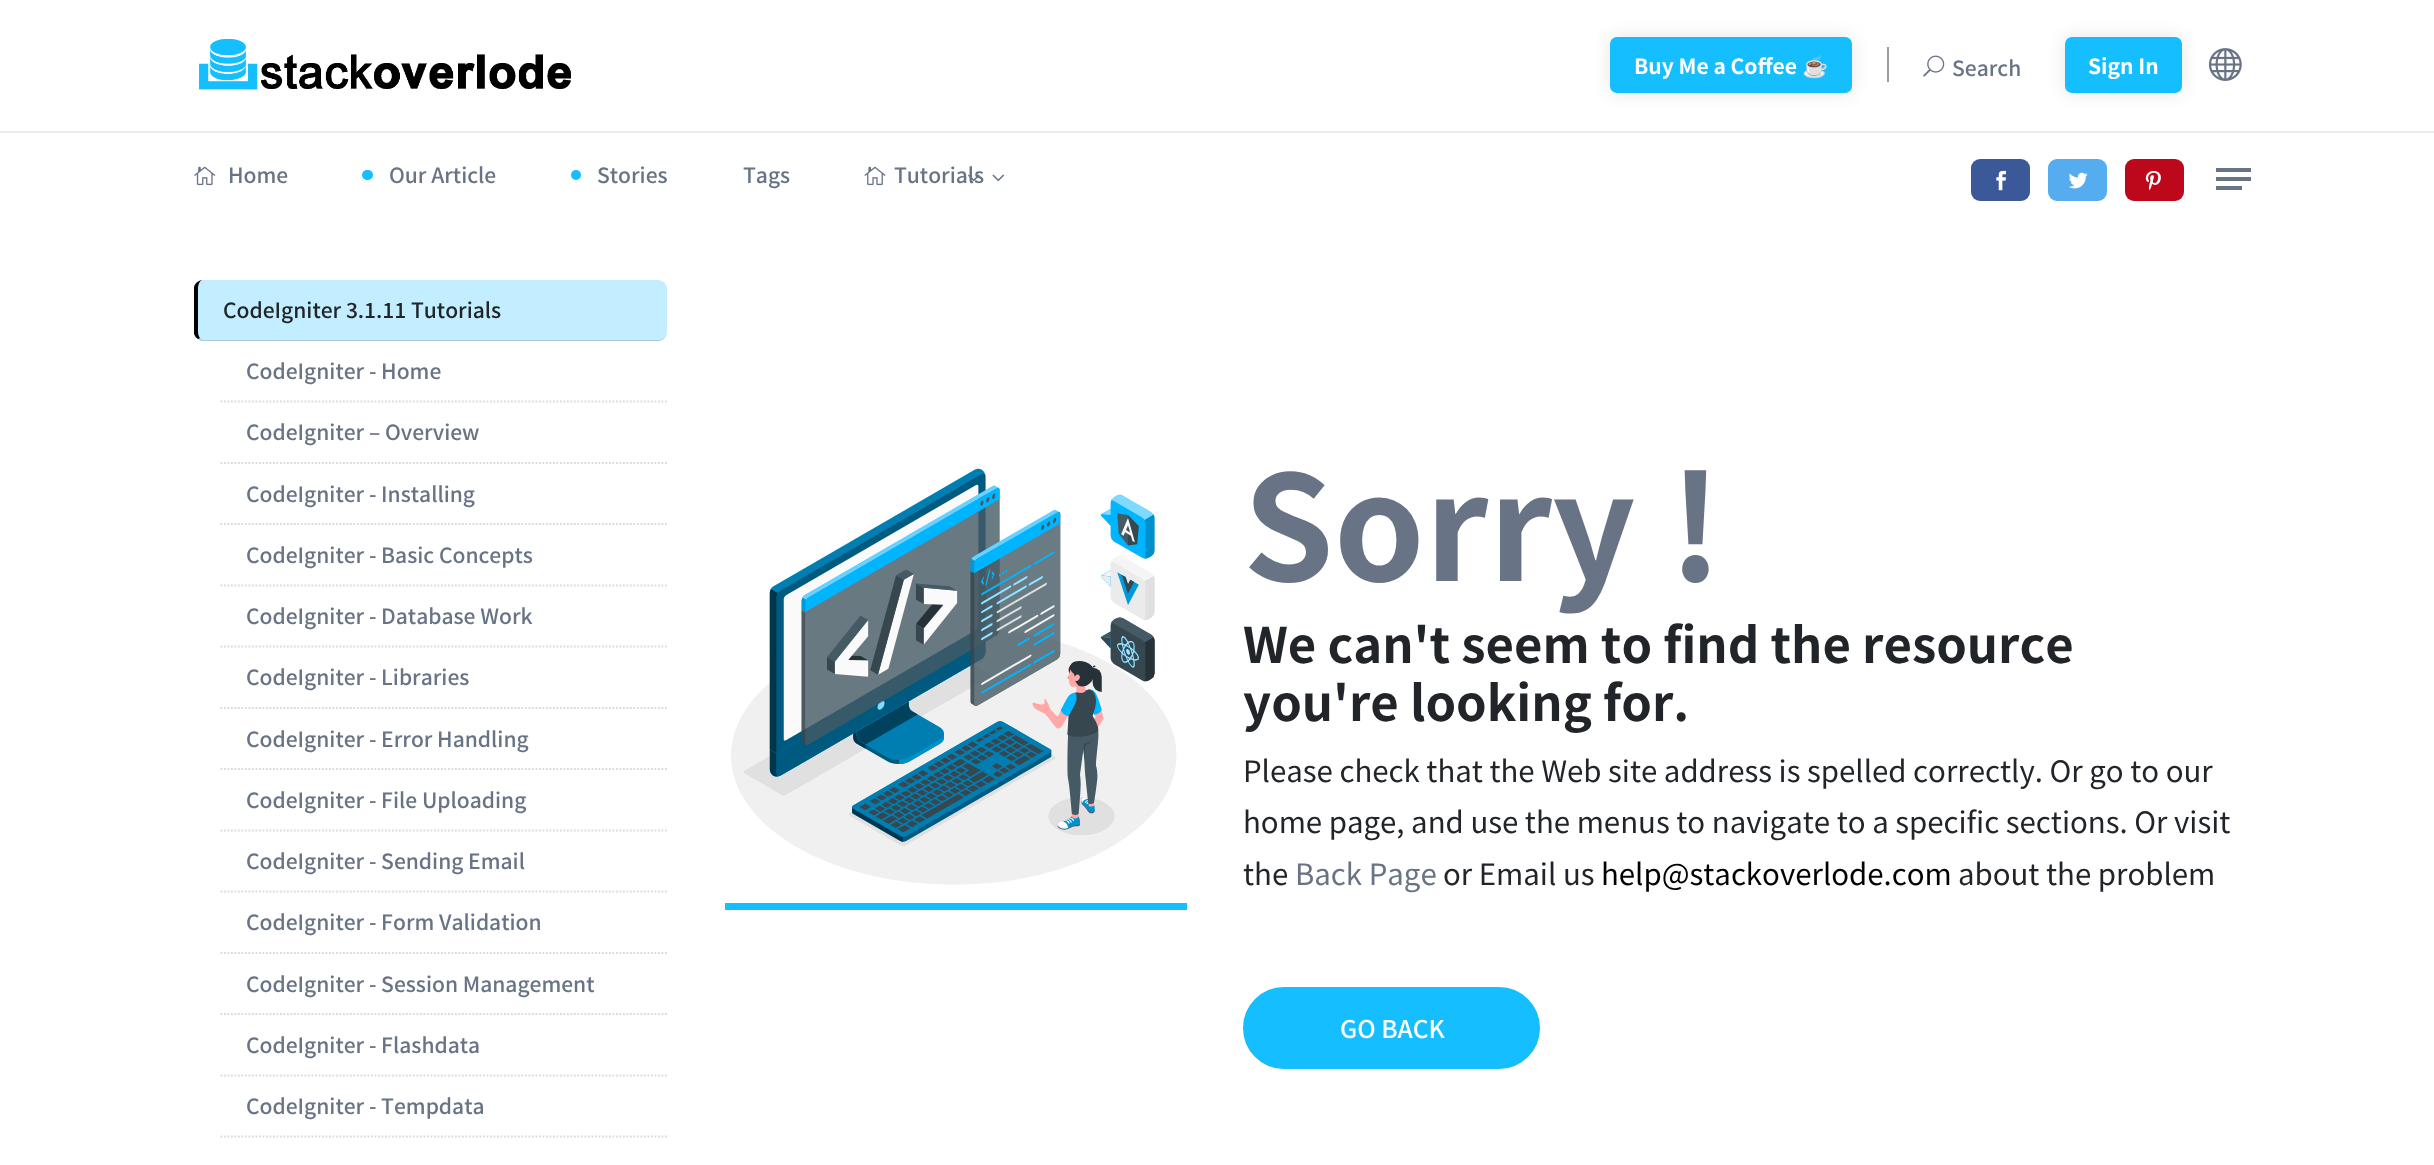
async function draw(canvas) {
  canvas.width = 2434
  canvas.height = 1165
  const ctx = canvas.getContext('2d')
  ctx.miterLimit = 4
  ctx.fontKerning = 'none'
  async function loadImage(src) {
    const img = new Image()
    img.src = src
    await img.decode()
    return img
  }

  ctx.fillStyle = '#fff'
  ctx.fillRect(0, 0, 2434, 1165)
  ctx.fillStyle = '#eaecee'
  ctx.fillRect(0, 131, 2434, 2)
  ctx.drawImage(await loadImage('image0.png'), 199, 39, 372, 51)
  ctx.fillStyle = '#0000001a'
  ctx.filter = 'blur(9px)'
  ctx.beginPath()
  ctx.roundRect(1610, 37, 242, 56, 7)
  ctx.fill()
  ctx.filter = 'none'
  ctx.fillStyle = '#14beff'
  ctx.beginPath()
  ctx.roundRect(1610, 37, 242, 56, 7)
  ctx.fill()
  ctx.font = 'bold 21px Noto Sans JP'
  ctx.fillStyle = '#fff'
  ctx.fillText('Buy Me a Coffee', 1634, 74)
  ctx.font = 'bold 21px Noto Color Emoji'
  ctx.fillText('☕', 1802, 74)
  ctx.fillStyle = '#9b9b9b'
  ctx.fillRect(1887, 47, 2, 35)
  ctx.drawImage(await loadImage('image1.png'), 1923, 55, 22, 22)
  ctx.font = '500 21px Noto Sans JP'
  ctx.fillStyle = '#687385'
  ctx.fillText('Search', 1952, 76)
  ctx.fillStyle = '#0000001a'
  ctx.filter = 'blur(9px)'
  ctx.beginPath()
  ctx.roundRect(2065, 37, 117, 56, 7)
  ctx.fill()
  ctx.filter = 'none'
  ctx.fillStyle = '#14beff'
  ctx.beginPath()
  ctx.roundRect(2065, 37, 117, 56, 7)
  ctx.fill()
  ctx.font = 'bold 21px Noto Sans JP'
  ctx.fillStyle = '#fff'
  ctx.fillText('Sign In', 2088, 74)
  ctx.drawImage(await loadImage('image2.png'), 2208, 48, 34, 33)
  ctx.drawImage(await loadImage('image3.png'), 194, 166, 22, 20)
  ctx.font = '500 21px Noto Sans JP'
  ctx.fillStyle = '#687385'
  ctx.fillText('Home', 228, 183)
  ctx.fillStyle = '#14beff'
  ctx.beginPath()
  ctx.roundRect(362, 170, 11, 10, 5)
  ctx.fill()
  ctx.fillStyle = '#687385'
  ctx.fillText('Our Article', 389, 183)
  ctx.fillStyle = '#14beff'
  ctx.beginPath()
  ctx.arc(576, 175, 5, 0, 2 * Math.PI)
  ctx.fill()
  ctx.fillStyle = '#687385'
  ctx.fillText('Stories', 597, 183)
  ctx.fillText('Tags', 743, 183)
  ctx.drawImage(await loadImage('image4.png'), 864, 166, 22, 20)
  ctx.fillText('Tutorials', 894, 183)
  ctx.drawImage(await loadImage('image5.png'), 968, 174, 36, 8)
  ctx.fillStyle = '#3b5999'
  ctx.beginPath()
  ctx.roundRect(1971, 159, 59, 42, 9)
  ctx.fill()
  ctx.drawImage(await loadImage('image6.png'), 1996, 170, 10, 21)
  ctx.fillStyle = '#55acee'
  ctx.beginPath()
  ctx.roundRect(2048, 159, 59, 42, 9)
  ctx.fill()
  ctx.drawImage(await loadImage('image7.png'), 2068, 172, 20, 17)
  ctx.fillStyle = '#bd081c'
  ctx.beginPath()
  ctx.roundRect(2125, 159, 59, 42, 9)
  ctx.fill()
  ctx.drawImage(await loadImage('image8.png'), 2145, 171, 16, 20)
  ctx.fillStyle = '#687385'
  ctx.fillRect(2216, 186, 26, 4)
  ctx.fillRect(2216, 168, 35, 4)
  ctx.fillRect(2216, 177, 35, 4)
  ctx.fillStyle = '#c2eeff'
  ctx.beginPath()
  ctx.roundRect(194, 280, 473, 61, 9)
  ctx.fill()
  ctx.fillStyle = '#00000026'
  ctx.beginPath()
  ctx.moveTo(667, 334)
  ctx.bezierCurveTo(666, 338, 662, 341, 658, 341)
  ctx.lineTo(203, 341)
  ctx.bezierCurveTo(201, 341, 199, 340, 198, 339)
  ctx.lineTo(200, 338)
  ctx.bezierCurveTo(201, 339, 202, 340, 203, 340)
  ctx.lineTo(658, 340)
  ctx.bezierCurveTo(662, 340, 666, 337, 667, 334)
  ctx.closePath()
  ctx.fill()
  ctx.fillStyle = '#000'
  ctx.beginPath()
  ctx.moveTo(203, 280)
  ctx.bezierCurveTo(200, 280, 198, 284, 198, 289)
  ctx.lineTo(198, 332)
  ctx.bezierCurveTo(198, 334, 199, 337, 200, 338)
  ctx.lineTo(198, 339)
  ctx.bezierCurveTo(196, 338, 195, 336, 194, 334)
  ctx.lineTo(194, 287)
  ctx.bezierCurveTo(195, 283, 199, 280, 203, 280)
  ctx.closePath()
  ctx.fill()
  ctx.fillStyle = '#212529'
  ctx.fillText('CodeIgniter 3.1.11 Tutorials', 223, 318)
  ctx.beginPath()
  ctx.moveTo(220.5, 401.5)
  ctx.lineTo(667, 401.5)
  ctx.strokeStyle = '#d9d9d9'
  ctx.lineWidth = 1.8
  ctx.setLineDash([1.75, 1.75])
  ctx.stroke()
  ctx.fillStyle = '#687385'
  ctx.fillText('CodeIgniter - Home', 246, 379)
  ctx.beginPath()
  ctx.moveTo(220.5, 463)
  ctx.lineTo(667, 463)
  ctx.stroke()
  ctx.fillText('CodeIgniter – Overview', 246, 440)
  ctx.beginPath()
  ctx.moveTo(220.5, 524)
  ctx.lineTo(667, 524)
  ctx.stroke()
  ctx.fillText('CodeIgniter - Installing', 246, 502)
  ctx.beginPath()
  ctx.moveTo(220.5, 585.5)
  ctx.lineTo(667, 585.5)
  ctx.stroke()
  ctx.fillText('CodeIgniter - Basic Concepts', 246, 563)
  ctx.beginPath()
  ctx.moveTo(220.5, 646.5)
  ctx.lineTo(667, 646.5)
  ctx.stroke()
  ctx.fillText('CodeIgniter - Database Work', 246, 624)
  ctx.beginPath()
  ctx.moveTo(220.5, 708)
  ctx.lineTo(667, 708)
  ctx.stroke()
  ctx.fillText('CodeIgniter - Libraries', 246, 685)
  ctx.beginPath()
  ctx.moveTo(220.5, 769)
  ctx.lineTo(667, 769)
  ctx.stroke()
  ctx.fillText('CodeIgniter - Error Handling', 246, 747)
  ctx.beginPath()
  ctx.moveTo(220.5, 830.5)
  ctx.lineTo(667, 830.5)
  ctx.stroke()
  ctx.fillText('CodeIgniter - File Uploading', 246, 808)
  ctx.beginPath()
  ctx.moveTo(220.5, 891.5)
  ctx.lineTo(667, 891.5)
  ctx.stroke()
  ctx.fillText('CodeIgniter - Sending Email', 246, 869)
  ctx.beginPath()
  ctx.moveTo(220.5, 953)
  ctx.lineTo(667, 953)
  ctx.stroke()
  ctx.fillText('CodeIgniter - Form Validation', 246, 930)
  ctx.beginPath()
  ctx.moveTo(220.5, 1014)
  ctx.lineTo(667, 1014)
  ctx.stroke()
  ctx.fillText('CodeIgniter - Session Management', 246, 992)
  ctx.beginPath()
  ctx.moveTo(220.5, 1075.5)
  ctx.lineTo(667, 1075.5)
  ctx.stroke()
  ctx.fillText('CodeIgniter - Flashdata', 246, 1053)
  ctx.beginPath()
  ctx.moveTo(220.5, 1136.5)
  ctx.lineTo(667, 1136.5)
  ctx.stroke()
  ctx.fillText('CodeIgniter - Tempdata', 246, 1114)
  ctx.drawImage(await loadImage('image9.png'), 731, 468, 446, 417)
  ctx.fillStyle = '#14beff'
  ctx.fillRect(725, 903, 462, 7)
  ctx.font = 'bold 145.5px Noto Sans JP'
  ctx.fillStyle = '#687385'
  ctx.fillText('Sorry !', 1243, 581)
  ctx.font = 'bold 49px Noto Sans JP'
  ctx.fillStyle = '#212529'
  ctx.fillText('We can\'t seem to find the resource', 1243, 663)
  ctx.fillText('you\'re looking for.', 1243, 721)
  ctx.font = '29.4px Noto Sans JP'
  ctx.fillText('Please check that the Web site address is spelled correctly. Or go to our', 1243, 782)
  ctx.fillText('home page, and use the menus to navigate to a specific sections. Or visit', 1243, 833)
  ctx.fillText('the', 1243, 885)
  ctx.fillStyle = '#687385'
  ctx.fillText('Back Page', 1295, 885)
  ctx.fillStyle = '#212529'
  ctx.fillText('or Email us', 1443, 885)
  ctx.fillStyle = '#000'
  ctx.fillText('help@stackoverlode.com', 1601, 885)
  ctx.fillStyle = '#212529'
  ctx.fillText('about the problem', 1958, 885)
  ctx.fillStyle = '#14beff'
  ctx.beginPath()
  ctx.roundRect(1244, 988, 295, 80, 40)
  ctx.fill()
  ctx.strokeStyle = '#14beff'
  ctx.lineWidth = 2
  ctx.setLineDash([])
  ctx.stroke()
  ctx.font = '500 24.5px Noto Sans JP'
  ctx.fillStyle = '#fff'
  ctx.fillText('GO BACK', 1340, 1038)
}

draw(document.querySelector('canvas'))
